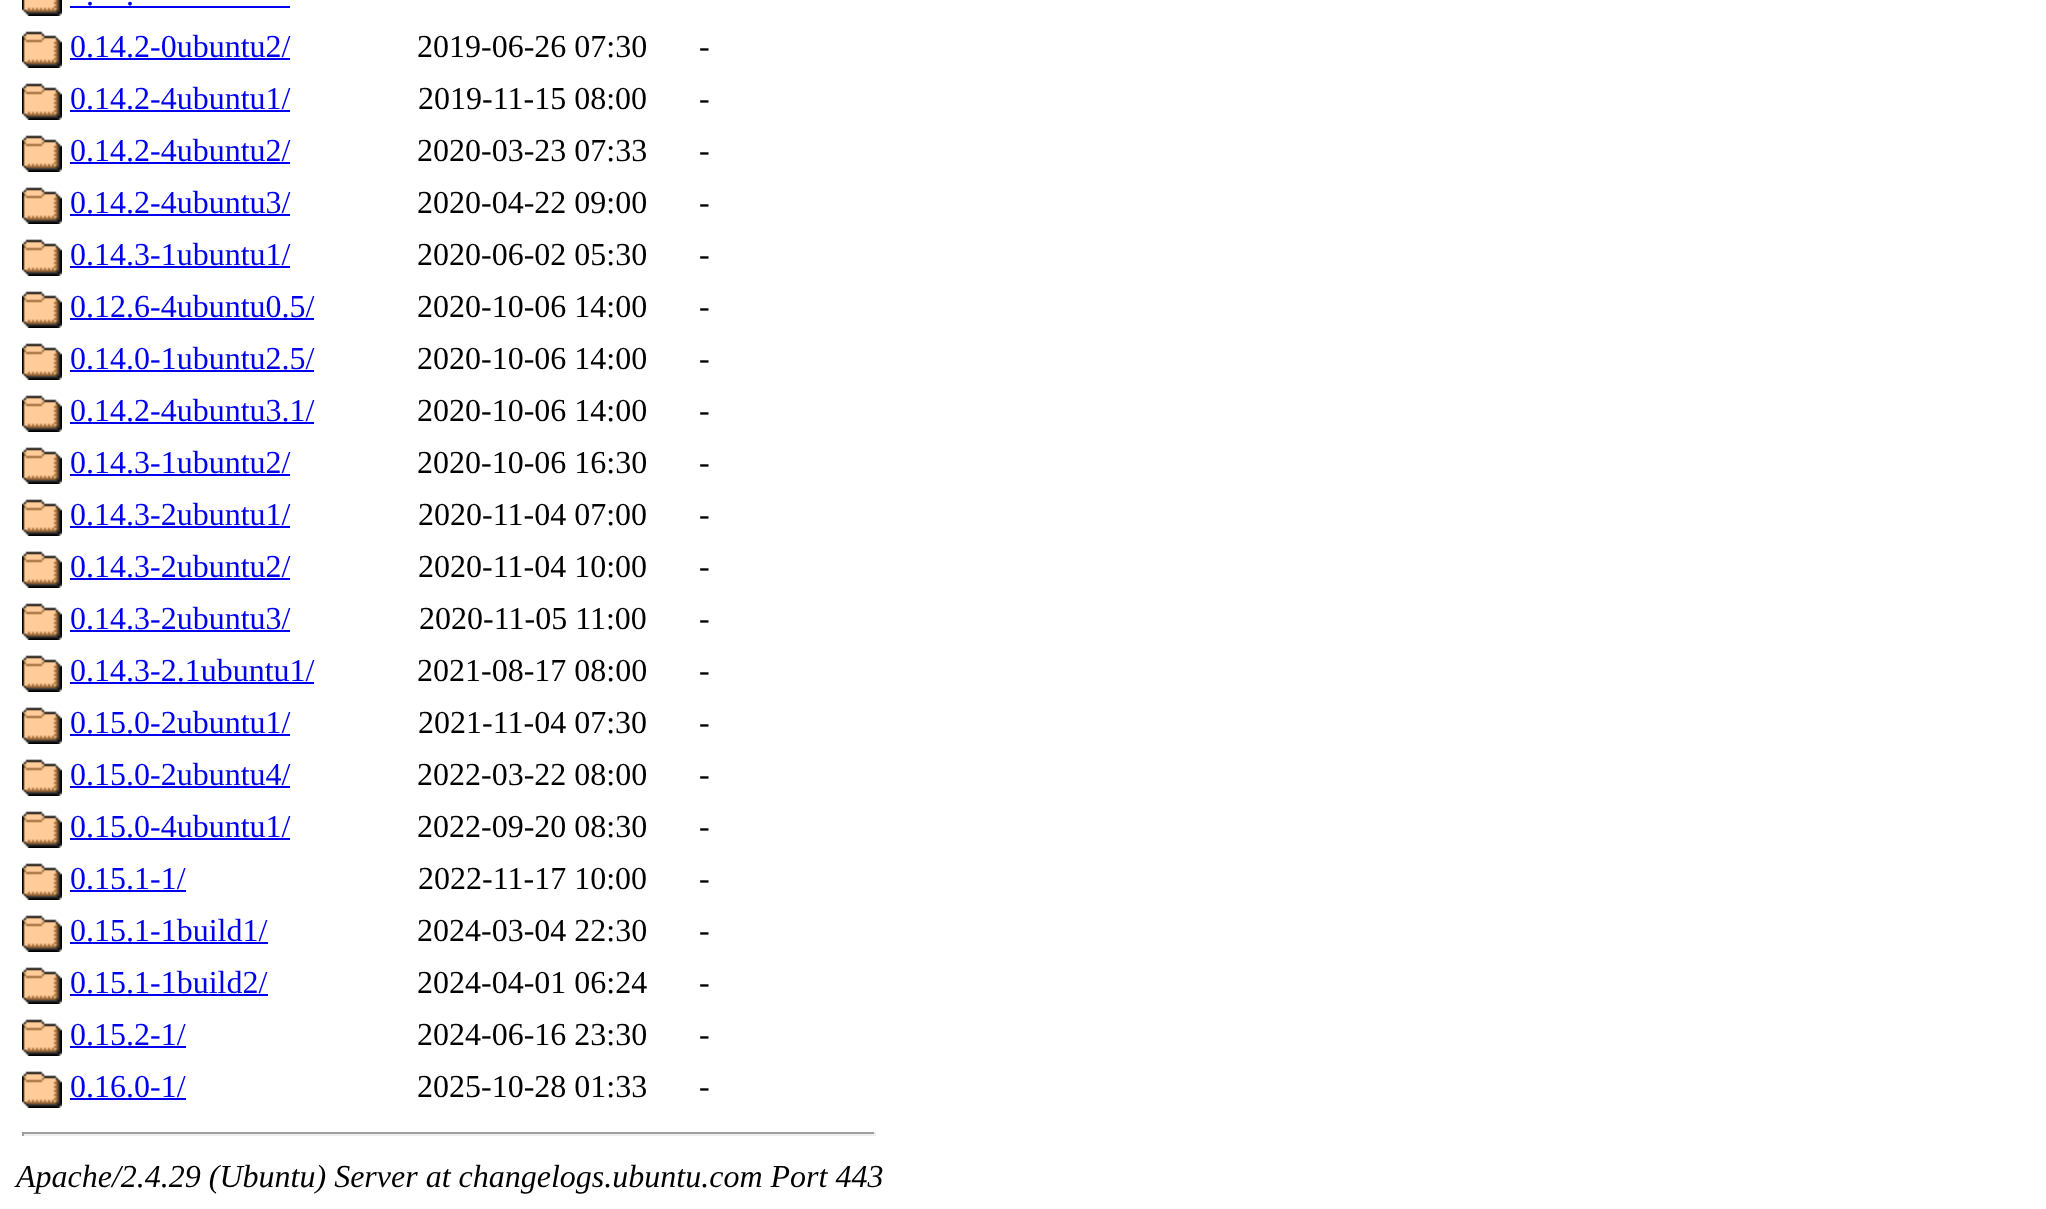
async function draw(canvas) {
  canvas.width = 2046
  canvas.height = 1209
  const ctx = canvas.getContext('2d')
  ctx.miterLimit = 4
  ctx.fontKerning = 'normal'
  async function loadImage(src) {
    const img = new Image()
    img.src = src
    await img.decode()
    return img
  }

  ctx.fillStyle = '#fff'
  ctx.fillRect(0, 0, 2046, 1209)
  ctx.drawImage(await loadImage('image0.png'), 22, 0, 40, 16)
  ctx.font = '32px Liberation Serif'
  ctx.fillStyle = '#00e'
  ctx.fillText('.', 86, 5)
  ctx.fillRect(70, 6, 220, 2)
  ctx.fillText('.', 126, 5)
  ctx.drawImage(await loadImage('image1.png'), 22, 31, 40, 37)
  ctx.fillText('0.14.2-0ubuntu2/', 70, 57)
  ctx.fillRect(70, 58, 220, 2)
  ctx.fillStyle = '#000'
  ctx.fillText('2019-06-26 07:30', 417, 57)
  ctx.fillText('-', 699, 57)
  ctx.drawImage(await loadImage('image1.png'), 22, 83, 40, 37)
  ctx.fillStyle = '#00e'
  ctx.fillText('0.14.2-4ubuntu1/', 70, 109)
  ctx.fillRect(70, 110, 220, 2)
  ctx.fillStyle = '#000'
  ctx.fillText('2019-11-15 08:00', 418, 109)
  ctx.fillText('-', 699, 109)
  ctx.drawImage(await loadImage('image1.png'), 22, 135, 40, 37)
  ctx.fillStyle = '#00e'
  ctx.fillText('0.14.2-4ubuntu2/', 70, 161)
  ctx.fillRect(70, 162, 220, 2)
  ctx.fillStyle = '#000'
  ctx.fillText('2020-03-23 07:33', 417, 161)
  ctx.fillText('-', 699, 161)
  ctx.drawImage(await loadImage('image1.png'), 22, 187, 40, 37)
  ctx.fillStyle = '#00e'
  ctx.fillText('0.14.2-4ubuntu3/', 70, 213)
  ctx.fillRect(70, 214, 220, 2)
  ctx.fillStyle = '#000'
  ctx.fillText('2020-04-22 09:00', 417, 213)
  ctx.fillText('-', 699, 213)
  ctx.drawImage(await loadImage('image1.png'), 22, 239, 40, 37)
  ctx.fillStyle = '#00e'
  ctx.fillText('0.14.3-1ubuntu1/', 70, 265)
  ctx.fillRect(70, 266, 220, 2)
  ctx.fillStyle = '#000'
  ctx.fillText('2020-06-02 05:30', 417, 265)
  ctx.fillText('-', 699, 265)
  ctx.drawImage(await loadImage('image1.png'), 22, 291, 40, 37)
  ctx.fillStyle = '#00e'
  ctx.fillText('0.12.6-4ubuntu0.5/', 70, 317)
  ctx.fillRect(70, 318, 244, 2)
  ctx.fillStyle = '#000'
  ctx.fillText('2020-10-06 14:00', 417, 317)
  ctx.fillText('-', 699, 317)
  ctx.drawImage(await loadImage('image1.png'), 22, 343, 40, 37)
  ctx.fillStyle = '#00e'
  ctx.fillText('0.14.0-1ubuntu2.5/', 70, 369)
  ctx.fillRect(70, 370, 244, 2)
  ctx.fillStyle = '#000'
  ctx.fillText('2020-10-06 14:00', 417, 369)
  ctx.fillText('-', 699, 369)
  ctx.drawImage(await loadImage('image1.png'), 22, 395, 40, 37)
  ctx.fillStyle = '#00e'
  ctx.fillText('0.14.2-4ubuntu3.1/', 70, 421)
  ctx.fillRect(70, 422, 244, 2)
  ctx.fillStyle = '#000'
  ctx.fillText('2020-10-06 14:00', 417, 421)
  ctx.fillText('-', 699, 421)
  ctx.drawImage(await loadImage('image1.png'), 22, 447, 40, 37)
  ctx.fillStyle = '#00e'
  ctx.fillText('0.14.3-1ubuntu2/', 70, 473)
  ctx.fillRect(70, 474, 220, 2)
  ctx.fillStyle = '#000'
  ctx.fillText('2020-10-06 16:30', 417, 473)
  ctx.fillText('-', 699, 473)
  ctx.drawImage(await loadImage('image1.png'), 22, 499, 40, 37)
  ctx.fillStyle = '#00e'
  ctx.fillText('0.14.3-2ubuntu1/', 70, 525)
  ctx.fillRect(70, 526, 220, 2)
  ctx.fillStyle = '#000'
  ctx.fillText('2020-11-04 07:00', 418, 525)
  ctx.fillText('-', 699, 525)
  ctx.drawImage(await loadImage('image1.png'), 22, 551, 40, 37)
  ctx.fillStyle = '#00e'
  ctx.fillText('0.14.3-2ubuntu2/', 70, 577)
  ctx.fillRect(70, 578, 220, 2)
  ctx.fillStyle = '#000'
  ctx.fillText('2020-11-04 10:00', 418, 577)
  ctx.fillText('-', 699, 577)
  ctx.drawImage(await loadImage('image1.png'), 22, 603, 40, 37)
  ctx.fillStyle = '#00e'
  ctx.fillText('0.14.3-2ubuntu3/', 70, 629)
  ctx.fillRect(70, 630, 220, 2)
  ctx.fillStyle = '#000'
  ctx.fillText('2020-11-05 11:00', 419, 629)
  ctx.fillText('-', 699, 629)
  ctx.drawImage(await loadImage('image1.png'), 22, 655, 40, 37)
  ctx.fillStyle = '#00e'
  ctx.fillText('0.14.3-2.1ubuntu1/', 70, 681)
  ctx.fillRect(70, 682, 244, 2)
  ctx.fillStyle = '#000'
  ctx.fillText('2021-08-17 08:00', 417, 681)
  ctx.fillText('-', 699, 681)
  ctx.drawImage(await loadImage('image1.png'), 22, 707, 40, 37)
  ctx.fillStyle = '#00e'
  ctx.fillText('0.15.0-2ubuntu1/', 70, 733)
  ctx.fillRect(70, 734, 220, 2)
  ctx.fillStyle = '#000'
  ctx.fillText('2021-11-04 07:30', 418, 733)
  ctx.fillText('-', 699, 733)
  ctx.drawImage(await loadImage('image1.png'), 22, 759, 40, 37)
  ctx.fillStyle = '#00e'
  ctx.fillText('0.15.0-2ubuntu4/', 70, 785)
  ctx.fillRect(70, 786, 220, 2)
  ctx.fillStyle = '#000'
  ctx.fillText('2022-03-22 08:00', 417, 785)
  ctx.fillText('-', 699, 785)
  ctx.drawImage(await loadImage('image1.png'), 22, 811, 40, 37)
  ctx.fillStyle = '#00e'
  ctx.fillText('0.15.0-4ubuntu1/', 70, 837)
  ctx.fillRect(70, 838, 220, 2)
  ctx.fillStyle = '#000'
  ctx.fillText('2022-09-20 08:30', 417, 837)
  ctx.fillText('-', 699, 837)
  ctx.drawImage(await loadImage('image1.png'), 22, 863, 40, 37)
  ctx.fillStyle = '#00e'
  ctx.fillText('0.15.1-1/', 70, 889)
  ctx.fillRect(70, 890, 116, 2)
  ctx.fillStyle = '#000'
  ctx.fillText('2022-11-17 10:00', 418, 889)
  ctx.fillText('-', 699, 889)
  ctx.drawImage(await loadImage('image1.png'), 22, 915, 40, 37)
  ctx.fillStyle = '#00e'
  ctx.fillText('0.15.1-1build1/', 70, 941)
  ctx.fillRect(70, 942, 198, 2)
  ctx.fillStyle = '#000'
  ctx.fillText('2024-03-04 22:30', 417, 941)
  ctx.fillText('-', 699, 941)
  ctx.drawImage(await loadImage('image1.png'), 22, 967, 40, 37)
  ctx.fillStyle = '#00e'
  ctx.fillText('0.15.1-1build2/', 70, 993)
  ctx.fillRect(70, 994, 198, 2)
  ctx.fillStyle = '#000'
  ctx.fillText('2024-04-01 06:24', 417, 993)
  ctx.fillText('-', 699, 993)
  ctx.drawImage(await loadImage('image1.png'), 22, 1019, 40, 37)
  ctx.fillStyle = '#00e'
  ctx.fillText('0.15.2-1/', 70, 1045)
  ctx.fillRect(70, 1046, 116, 2)
  ctx.fillStyle = '#000'
  ctx.fillText('2024-06-16 23:30', 417, 1045)
  ctx.fillText('-', 699, 1045)
  ctx.drawImage(await loadImage('image1.png'), 22, 1071, 40, 37)
  ctx.fillStyle = '#00e'
  ctx.fillText('0.16.0-1/', 70, 1097)
  ctx.fillRect(70, 1098, 116, 2)
  ctx.fillStyle = '#000'
  ctx.fillText('2025-10-28 01:33', 417, 1097)
  ctx.fillText('-', 699, 1097)
  ctx.fillStyle = '#9f9f9f'
  ctx.fillRect(22, 1132, 854, 2)
  ctx.fillStyle = '#eee'
  ctx.fillRect(874, 1132, 2, 4)
  ctx.fillRect(22, 1134, 854, 2)
  ctx.fillStyle = '#9f9f9f'
  ctx.fillRect(22, 1132, 2, 4)
  ctx.font = 'italic 32px Liberation Serif'
  ctx.fillStyle = '#000'
  ctx.fillText('Apache/2.4.29 (Ubuntu) Server at changelogs.ubuntu.com Port 443', 16, 1187)
}

draw(document.querySelector('canvas'))
